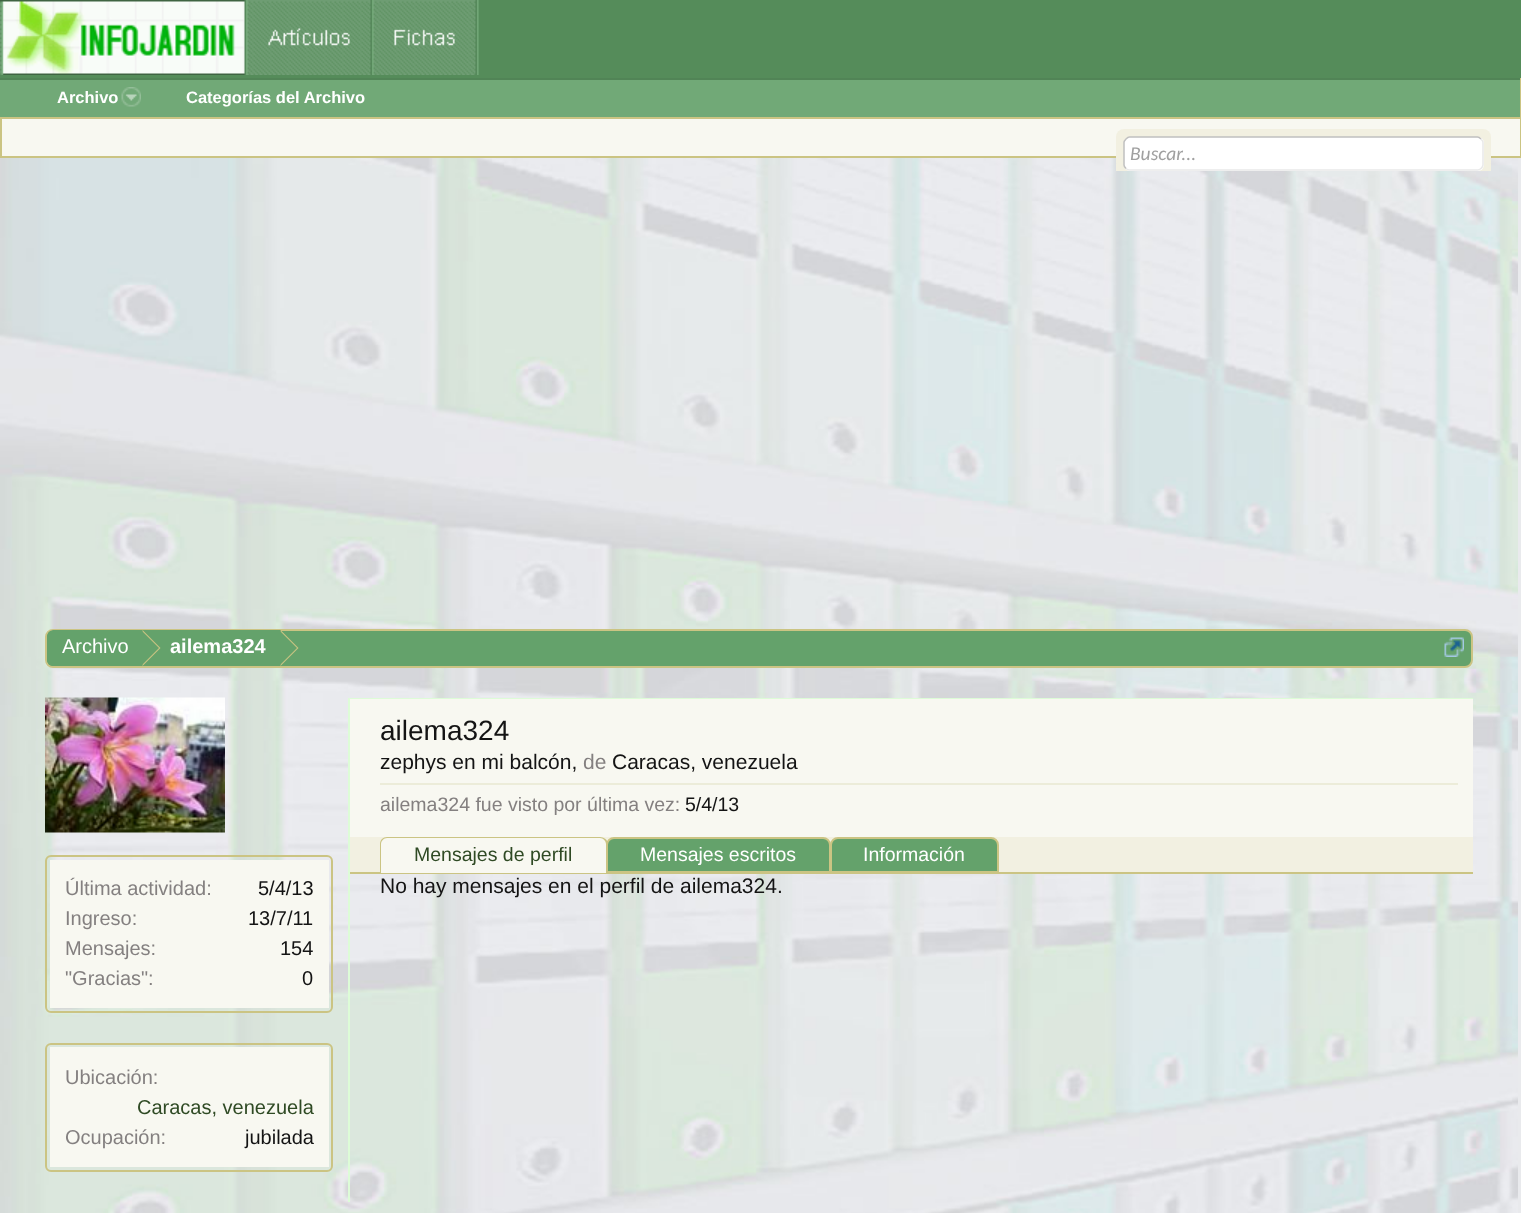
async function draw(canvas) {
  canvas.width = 1521
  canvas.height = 1213
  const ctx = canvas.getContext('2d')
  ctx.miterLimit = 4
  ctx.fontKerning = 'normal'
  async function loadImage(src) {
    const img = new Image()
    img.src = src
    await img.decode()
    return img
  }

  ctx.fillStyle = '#e9eaed'
  ctx.fillRect(0, 0, 1521, 1213)
  ctx.fillStyle = '#558c5a'
  ctx.fillRect(0, 0, 1521, 78)
  ctx.drawImage(await loadImage('image0.png'), 0, 0, 479, 75)
  ctx.fillStyle = '#71a977'
  ctx.fillRect(0, 80, 1520, 37)
  ctx.fillStyle = '#518456'
  ctx.fillRect(0, 78, 1521, 2)
  ctx.fillStyle = '#cbc483'
  ctx.fillRect(1520, 78, 1, 80)
  ctx.fillRect(0, 117, 1521, 2)
  ctx.font = 'bold 16.5px Liberation Sans'
  ctx.fillStyle = '#fff'
  ctx.fillText('Archivo', 57, 103)
  ctx.drawImage(await loadImage('image1.png'), 121, 87, 20, 20)
  ctx.fillText('Categorías del Archivo', 186, 103)
  ctx.fillStyle = '#f8f8f1'
  ctx.fillRect(2, 119, 1518, 37)
  ctx.fillStyle = '#cbc483'
  ctx.fillRect(0, 156, 1521, 2)
  ctx.fillRect(0, 119, 2, 39)
  ctx.drawImage(await loadImage('image2.png'), 0, 158, 1518, 1055)
  ctx.fillStyle = '#f2f0e1'
  ctx.beginPath()
  ctx.roundRect(1116, 129, 375, 42, 8)
  ctx.fill()
  ctx.fillRect(1116, 164, 375, 7)
  ctx.fillStyle = '#fff'
  ctx.beginPath()
  ctx.roundRect(1124, 137, 360, 34, 6)
  ctx.fill()
  ctx.beginPath()
  ctx.moveTo(1481, 139)
  ctx.bezierCurveTo(1482, 140, 1483, 141, 1483, 142.5)
  ctx.lineTo(1483, 165)
  ctx.bezierCurveTo(1483, 166.5, 1482, 167.5, 1481, 168.5)
  ctx.bezierCurveTo(1480, 169.5, 1479, 170, 1477.5, 170)
  ctx.lineTo(1129.5, 170)
  ctx.bezierCurveTo(1128, 170, 1127, 169.5, 1126, 168.5)
  ctx.strokeStyle = '#e9e9e9'
  ctx.lineWidth = 1.5
  ctx.stroke()
  ctx.beginPath()
  ctx.moveTo(1126, 168.5)
  ctx.bezierCurveTo(1125, 167.5, 1124, 166.5, 1124, 165)
  ctx.lineTo(1124, 142.5)
  ctx.bezierCurveTo(1124, 141, 1125, 140, 1126, 139)
  ctx.bezierCurveTo(1127, 138, 1128, 137, 1129.5, 137)
  ctx.lineTo(1477.5, 137)
  ctx.bezierCurveTo(1479, 137, 1480, 138, 1481, 139)
  ctx.strokeStyle = '#c0c0c0'
  ctx.stroke()
  ctx.font = 'italic 19.5px Carlito'
  ctx.fillStyle = '#a0a0a0'
  ctx.fillText('Buscar...', 1130, 160)
  ctx.fillStyle = '#64a26b'
  ctx.beginPath()
  ctx.roundRect(46, 630, 1426, 37, 7)
  ctx.fill()
  ctx.strokeStyle = '#cbc483'
  ctx.lineWidth = 2
  ctx.stroke()
  ctx.save()
  ctx.beginPath()
  ctx.roundRect(47, 630, 1425, 36, 6)
  ctx.clip()
  ctx.beginPath()
  ctx.roundRect(47, 630, 96, 38, [6, 0, 0, 6])
  ctx.fill()
  ctx.restore()
  ctx.font = '20px Liberation Sans'
  ctx.fillStyle = '#fff'
  ctx.fillText('Archivo', 62, 653)
  ctx.fillStyle = '#64a26b'
  ctx.fillRect(143, 630, 138, 1)
  ctx.fillStyle = '#cbc483'
  ctx.beginPath()
  ctx.moveTo(142.5, 666)
  ctx.lineTo(142.5, 630)
  ctx.lineTo(160.5, 648)
  ctx.closePath()
  ctx.fill()
  ctx.fillStyle = '#64a26b'
  ctx.beginPath()
  ctx.moveTo(141, 666)
  ctx.lineTo(141, 630)
  ctx.lineTo(159, 648)
  ctx.closePath()
  ctx.fill()
  ctx.font = 'bold 20px Liberation Sans'
  ctx.fillStyle = '#fff'
  ctx.fillText('ailema324', 170, 653)
  ctx.fillStyle = '#cbc483'
  ctx.beginPath()
  ctx.moveTo(280.5, 666)
  ctx.lineTo(280.5, 630)
  ctx.lineTo(298.5, 648)
  ctx.closePath()
  ctx.fill()
  ctx.fillStyle = '#64a26b'
  ctx.beginPath()
  ctx.moveTo(279, 666)
  ctx.lineTo(279, 630)
  ctx.lineTo(297, 648)
  ctx.closePath()
  ctx.fill()
  ctx.drawImage(await loadImage('image3.png'), 1444, 637, 20, 20)
  ctx.fillStyle = '#ddfcd7'
  ctx.fillRect(350, 698, 1123, 1)
  ctx.fillStyle = '#f8f8f1'
  ctx.fillRect(350, 699, 1123, 138)
  ctx.font = '28px Liberation Sans'
  ctx.fillStyle = '#141414'
  ctx.fillText('ailema324', 380, 740)
  ctx.font = '21px Liberation Sans'
  ctx.fillText('zephys en mi balcón,', 380, 769)
  ctx.fillStyle = '#848080'
  ctx.fillText('de', 583, 769)
  ctx.fillStyle = '#141414'
  ctx.fillText('Caracas, venezuela', 612, 769)
  ctx.fillStyle = '#ececd9'
  ctx.fillRect(380, 783, 1078, 2)
  ctx.font = '19.5px Liberation Sans'
  ctx.fillStyle = '#848080'
  ctx.fillText('ailema324 fue visto por última vez:', 380, 811)
  ctx.fillStyle = '#141414'
  ctx.fillText('5/4/13', 685, 811)
  ctx.fillStyle = '#f2f0e1'
  ctx.fillRect(350, 837, 1123, 35)
  ctx.fillStyle = '#cbc483'
  ctx.fillRect(350, 872, 1123, 2)
  ctx.fillStyle = '#f8f8f1'
  ctx.beginPath()
  ctx.roundRect(380, 837, 228, 36, [8, 8, 0, 0])
  ctx.fill()
  ctx.fillStyle = '#cbc483'
  ctx.beginPath()
  ctx.moveTo(387, 837)
  ctx.lineTo(600, 837)
  ctx.bezierCurveTo(604, 837, 608, 840, 608, 844)
  ctx.lineTo(608, 873)
  ctx.lineTo(380, 873)
  ctx.lineTo(380, 844)
  ctx.bezierCurveTo(380, 840, 383, 837, 387, 837)
  ctx.closePath()
  ctx.moveTo(387, 838)
  ctx.lineTo(600, 838)
  ctx.bezierCurveTo(603, 838, 606, 841, 606, 844)
  ctx.lineTo(606, 873)
  ctx.lineTo(381, 873)
  ctx.lineTo(381, 844)
  ctx.bezierCurveTo(381, 841, 384, 838, 387, 838)
  ctx.closePath()
  ctx.fill('evenodd')
  ctx.fillStyle = '#2f4a24'
  ctx.fillText('Mensajes de perfil', 414, 861)
  ctx.fillStyle = '#64a26b'
  ctx.beginPath()
  ctx.roundRect(607, 838, 223, 34, [7, 7, 0, 0])
  ctx.fill()
  ctx.stroke()
  ctx.fillStyle = '#fff'
  ctx.fillText('Mensajes escritos', 640, 861)
  ctx.fillStyle = '#64a26b'
  ctx.beginPath()
  ctx.roundRect(831, 838, 167, 34, [7, 7, 0, 0])
  ctx.fill()
  ctx.stroke()
  ctx.fillStyle = '#fff'
  ctx.fillText('Información', 863, 861)
  ctx.font = '21px Liberation Sans'
  ctx.fillStyle = '#141414'
  ctx.fillText('No hay mensajes en el perfil de ailema324.', 380, 893)
  ctx.fillStyle = '#ddfcd7'
  ctx.fillRect(348, 698, 2, 504)
  ctx.drawImage(await loadImage('image4.png'), 45, 697, 180, 136)
  ctx.beginPath()
  ctx.roundRect(46, 856, 286, 156, 5)
  ctx.stroke()
  ctx.fillStyle = '#f8f8f1'
  ctx.fillRect(50, 860, 279, 148)
  ctx.font = '20px Liberation Sans'
  ctx.fillStyle = '#848080'
  ctx.fillText('Última actividad:', 65, 895)
  ctx.fillStyle = '#141414'
  ctx.fillText('5/4/13', 258, 895)
  ctx.fillStyle = '#848080'
  ctx.fillText('Ingreso:', 65, 925)
  ctx.fillStyle = '#141414'
  ctx.fillText('13/7/11', 248, 925)
  ctx.fillStyle = '#848080'
  ctx.fillText('Mensajes:', 65, 955)
  ctx.fillStyle = '#141414'
  ctx.fillText('154', 280, 955)
  ctx.fillStyle = '#848080'
  ctx.fillText('"Gracias":', 65, 985)
  ctx.fillStyle = '#141414'
  ctx.fillText('0', 302, 985)
  ctx.beginPath()
  ctx.roundRect(46, 1044, 286, 127, 5)
  ctx.stroke()
  ctx.fillStyle = '#f8f8f1'
  ctx.fillRect(50, 1047, 279, 120)
  ctx.fillStyle = '#848080'
  ctx.fillText('Ubicación:', 65, 1084)
  ctx.fillStyle = '#2f4a24'
  ctx.fillText('Caracas, venezuela', 137, 1114)
  ctx.fillStyle = '#848080'
  ctx.fillText('Ocupación:', 65, 1144)
  ctx.fillStyle = '#141414'
  ctx.fillText('jubilada', 245, 1144)
}

draw(document.querySelector('canvas'))
